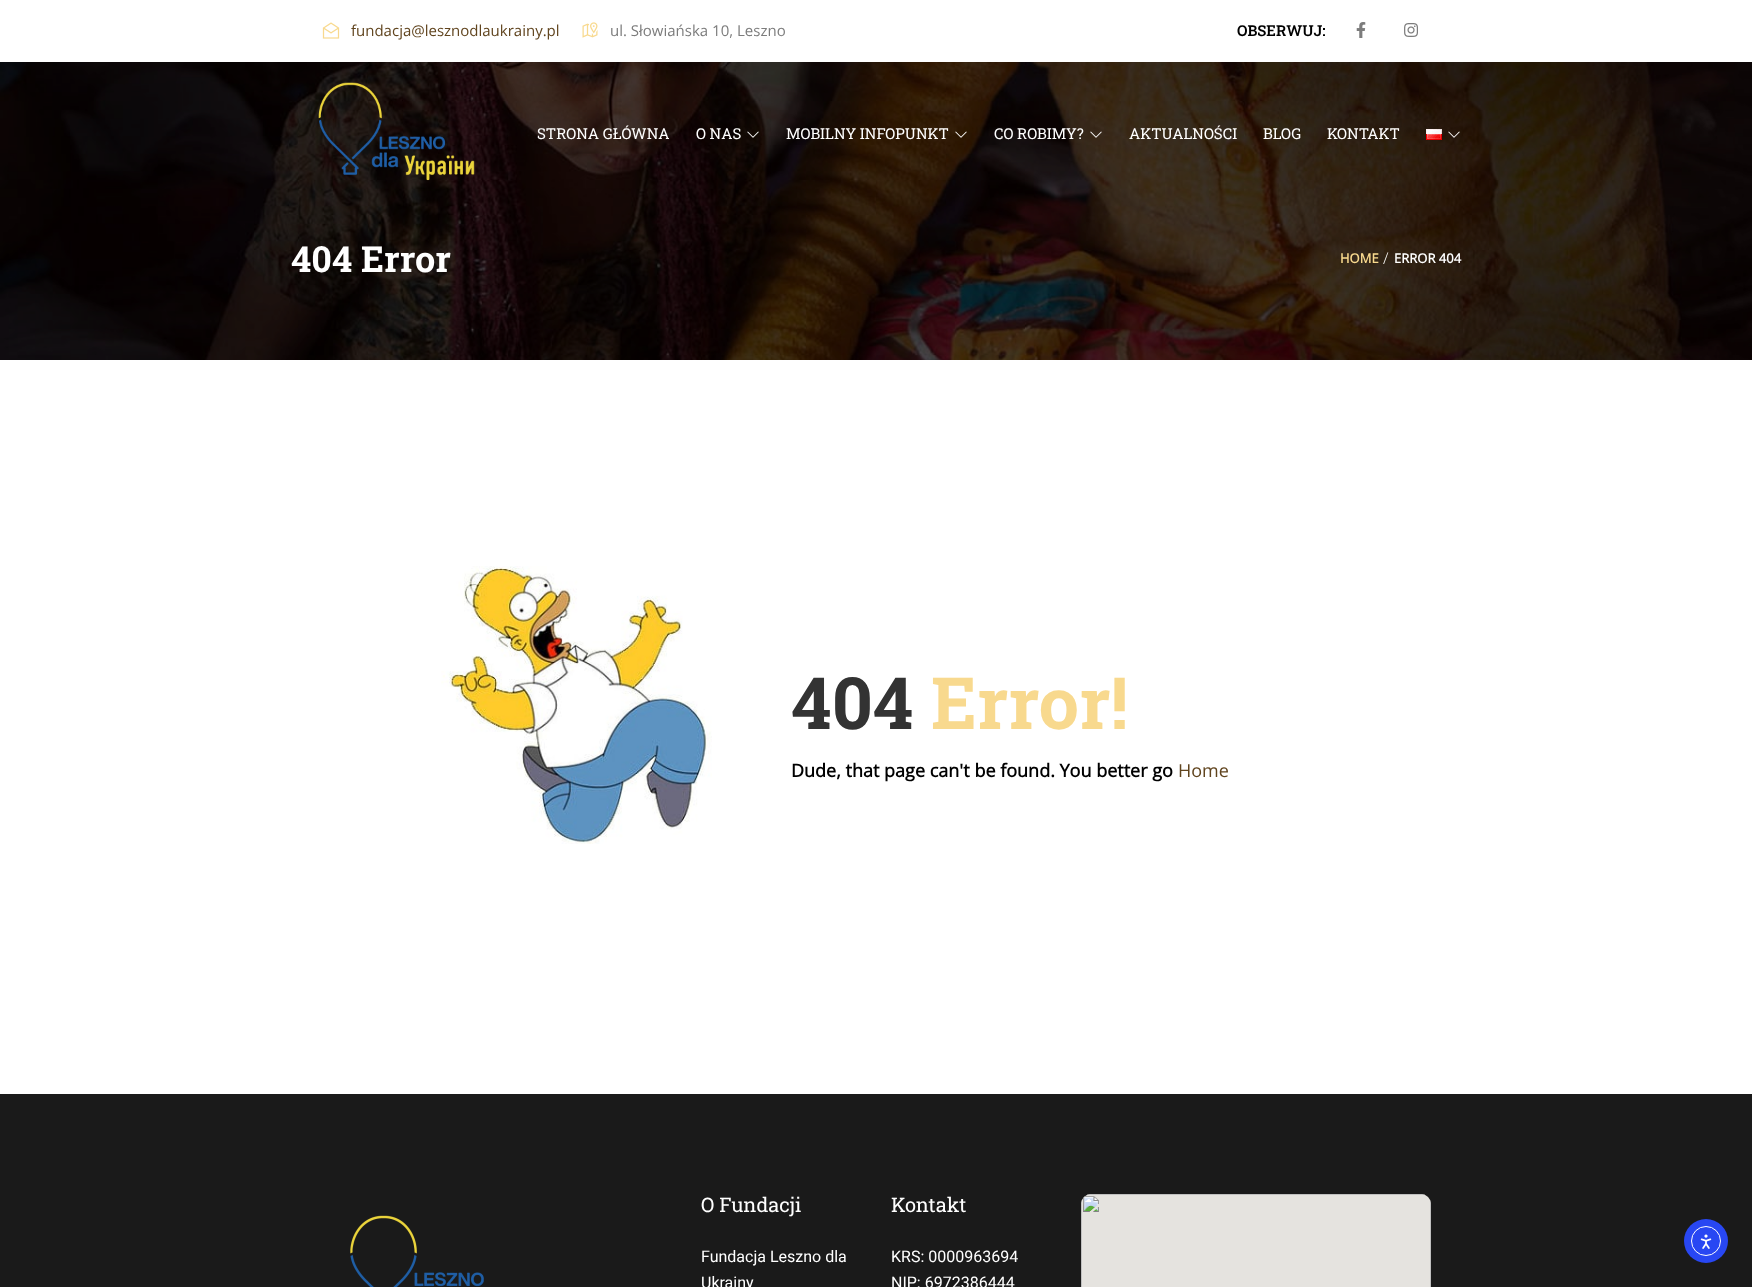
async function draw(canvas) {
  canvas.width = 1752
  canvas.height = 1287
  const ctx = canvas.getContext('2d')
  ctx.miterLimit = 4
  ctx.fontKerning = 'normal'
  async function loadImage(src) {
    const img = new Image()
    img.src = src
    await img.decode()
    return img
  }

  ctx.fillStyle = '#fff'
  ctx.fillRect(0, 0, 1752, 1287)
  ctx.drawImage(await loadImage('image0.png'), 322, 22, 18, 17)
  ctx.font = '15px Open Sans'
  ctx.fillStyle = '#60441e'
  ctx.fillText('fundacja@lesznodlaukrainy.pl', 351, 36)
  ctx.drawImage(await loadImage('image1.png'), 582, 22, 16, 16)
  ctx.fillStyle = '#7c7c7c'
  ctx.fillText('ul. Słowiańska 10, Leszno', 610, 36)
  ctx.font = '600 15px Roboto Slab'
  ctx.fillStyle = '#000'
  ctx.fillText('OBSERWUJ:', 1237, 36)
  ctx.drawImage(await loadImage('image2.png'), 1356, 22, 10, 16)
  ctx.drawImage(await loadImage('image3.png'), 1404, 23, 14, 14)
  ctx.drawImage(await loadImage('image10.png'), 0, 62, 1752, 298)
  ctx.drawImage(await loadImage('image4.png'), 318, 82, 157, 99)
  ctx.font = '15px Roboto Slab'
  ctx.fillStyle = '#fff'
  ctx.fillText('STRONA GŁÓWNA', 537, 139)
  ctx.fillText('O NAS', 696, 139)
  ctx.drawImage(await loadImage('image5.png'), 747, 131, 12, 7)
  ctx.fillText('MOBILNY INFOPUNKT', 786, 139)
  ctx.drawImage(await loadImage('image6.png'), 955, 131, 12, 7)
  ctx.fillText('CO ROBIMY?', 994, 139)
  ctx.drawImage(await loadImage('image7.png'), 1090, 131, 12, 7)
  ctx.fillText('AKTUALNOŚCI', 1129, 139)
  ctx.fillText('BLOG', 1263, 139)
  ctx.fillText('KONTAKT', 1327, 139)
  ctx.drawImage(await loadImage('image8.png'), 1426, 129, 16, 11)
  ctx.drawImage(await loadImage('image9.png'), 1448, 131, 12, 7)
  ctx.font = 'bold 36px Roboto Slab'
  ctx.fillText('404 Error', 291, 272)
  ctx.font = 'bold 13px Open Sans'
  ctx.fillStyle = '#f8d98e'
  ctx.fillText('HOME', 1340, 263)
  ctx.font = '300 16px Open Sans'
  ctx.fillStyle = '#fff'
  ctx.fillText('/', 1383, 264)
  ctx.font = 'bold 13px Open Sans'
  ctx.fillText('ERROR 404', 1394, 263)
  ctx.drawImage(await loadImage('image11.png'), 441, 566, 271, 278)
  ctx.font = 'bold 72px Roboto Slab'
  ctx.fillStyle = '#333'
  ctx.fillText('404', 791, 729)
  ctx.fillStyle = '#f8d98e'
  ctx.fillText('Error!', 931, 729)
  ctx.font = 'bold 18px Open Sans'
  ctx.fillStyle = '#000'
  ctx.fillText('Dude, that page can\'t be found. You better go', 791, 777)
  ctx.font = '18px Open Sans'
  ctx.fillStyle = '#60441e'
  ctx.fillText('Home', 1178, 777)
  ctx.fillStyle = '#1a1a1a'
  ctx.fillRect(0, 1094, 1752, 193)
  ctx.drawImage(await loadImage('image12.png'), 350, 1215, 134, 72)
  ctx.font = '20px Roboto Slab'
  ctx.fillStyle = '#fff'
  ctx.fillText('O Fundacji', 701, 1212)
  ctx.font = '16px Roboto'
  ctx.fillText('Fundacja Leszno dla', 701, 1262)
  ctx.fillText('Ukrainy', 701, 1288)
  ctx.font = '20px Roboto Slab'
  ctx.fillText('Kontakt', 891, 1212)
  ctx.font = '16px Roboto'
  ctx.fillText('KRS: 0000963694', 891, 1262)
  ctx.fillText('NIP: 6972386444', 891, 1288)
  ctx.drawImage(await loadImage('image13.png'), 1081, 1194, 350, 93)
  ctx.fillStyle = '#2847f3'
  ctx.beginPath()
  ctx.arc(1706, 1241, 22, 0, 2 * Math.PI)
  ctx.fill()
  ctx.beginPath()
  ctx.arc(1706, 1241, 14.5, 0, 2 * Math.PI)
  ctx.strokeStyle = '#fff'
  ctx.stroke()
  ctx.drawImage(await loadImage('image14.png'), 1700, 1234, 12, 15)
}

draw(document.querySelector('canvas'))
